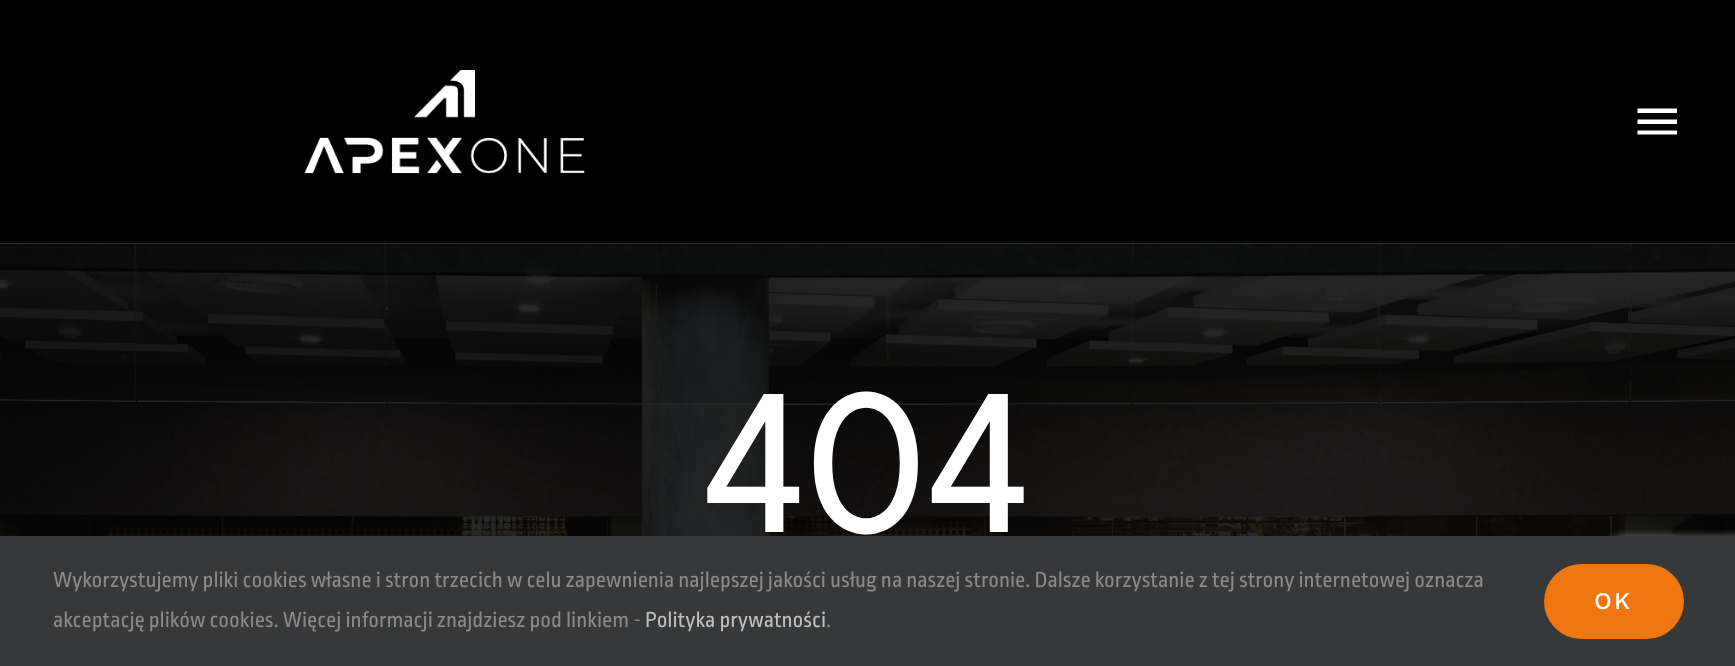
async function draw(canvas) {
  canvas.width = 1735
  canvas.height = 666
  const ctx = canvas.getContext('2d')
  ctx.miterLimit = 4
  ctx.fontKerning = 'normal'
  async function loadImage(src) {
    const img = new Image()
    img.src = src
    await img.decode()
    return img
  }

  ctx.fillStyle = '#fff'
  ctx.fillRect(0, 0, 1735, 666)
  ctx.fillStyle = '#000'
  ctx.fillRect(0, 0, 1735, 243)
  ctx.drawImage(await loadImage('image0.png'), 304, 70, 281, 104)
  ctx.fillStyle = '#fff'
  ctx.beginPath()
  ctx.moveTo(1637.5, 108.5)
  ctx.lineTo(1677, 108.5)
  ctx.lineTo(1677, 113)
  ctx.lineTo(1637.5, 113)
  ctx.closePath()
  ctx.moveTo(1637.5, 124)
  ctx.lineTo(1637.5, 119.5)
  ctx.lineTo(1677, 119.5)
  ctx.lineTo(1677, 124)
  ctx.closePath()
  ctx.moveTo(1637.5, 134.5)
  ctx.lineTo(1637.5, 130.5)
  ctx.lineTo(1677, 130.5)
  ctx.lineTo(1677, 134.5)
  ctx.closePath()
  ctx.fill()
  ctx.drawImage(await loadImage('image1.png'), 0, 243, 1735, 293)
  ctx.font = '209px League Spartan'
  ctx.fillText('404', 704, 532)
  ctx.fillStyle = '#808080'
  ctx.filter = 'blur(4.5px)'
  ctx.beginPath()
  ctx.roundRect(1614, 537, 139, 105, 4)
  ctx.fill()
  ctx.filter = 'none'
  ctx.fillStyle = '#363839'
  ctx.fillRect(0, 536, 1735, 130)
  ctx.font = '22.75px Ropa Sans'
  ctx.fillStyle = '#8c8989'
  ctx.fillText('Wykorzystujemy pliki cookies własne i stron trzecich w celu zapewnienia najlepszej jakości usług na naszej stronie. Dalsze korzystanie z tej strony internetowej oznacza', 53, 587)
  ctx.fillText('akceptację plików cookies. Więcej informacji znajdziesz pod linkiem -', 53, 627)
  ctx.fillStyle = '#bfbfbf'
  ctx.fillText('Polityka prywatności', 645, 627)
  ctx.fillStyle = '#8c8989'
  ctx.fillText('.', 826, 627)
  ctx.fillStyle = '#f07710'
  ctx.beginPath()
  ctx.roundRect(1544, 564, 140, 75, 37.5)
  ctx.fill()
  ctx.letterSpacing = '2px'
  ctx.font = '500 24px Work Sans'
  ctx.fillStyle = '#fff'
  ctx.fillText('OK', 1594, 609)
}

draw(document.querySelector('canvas'))
